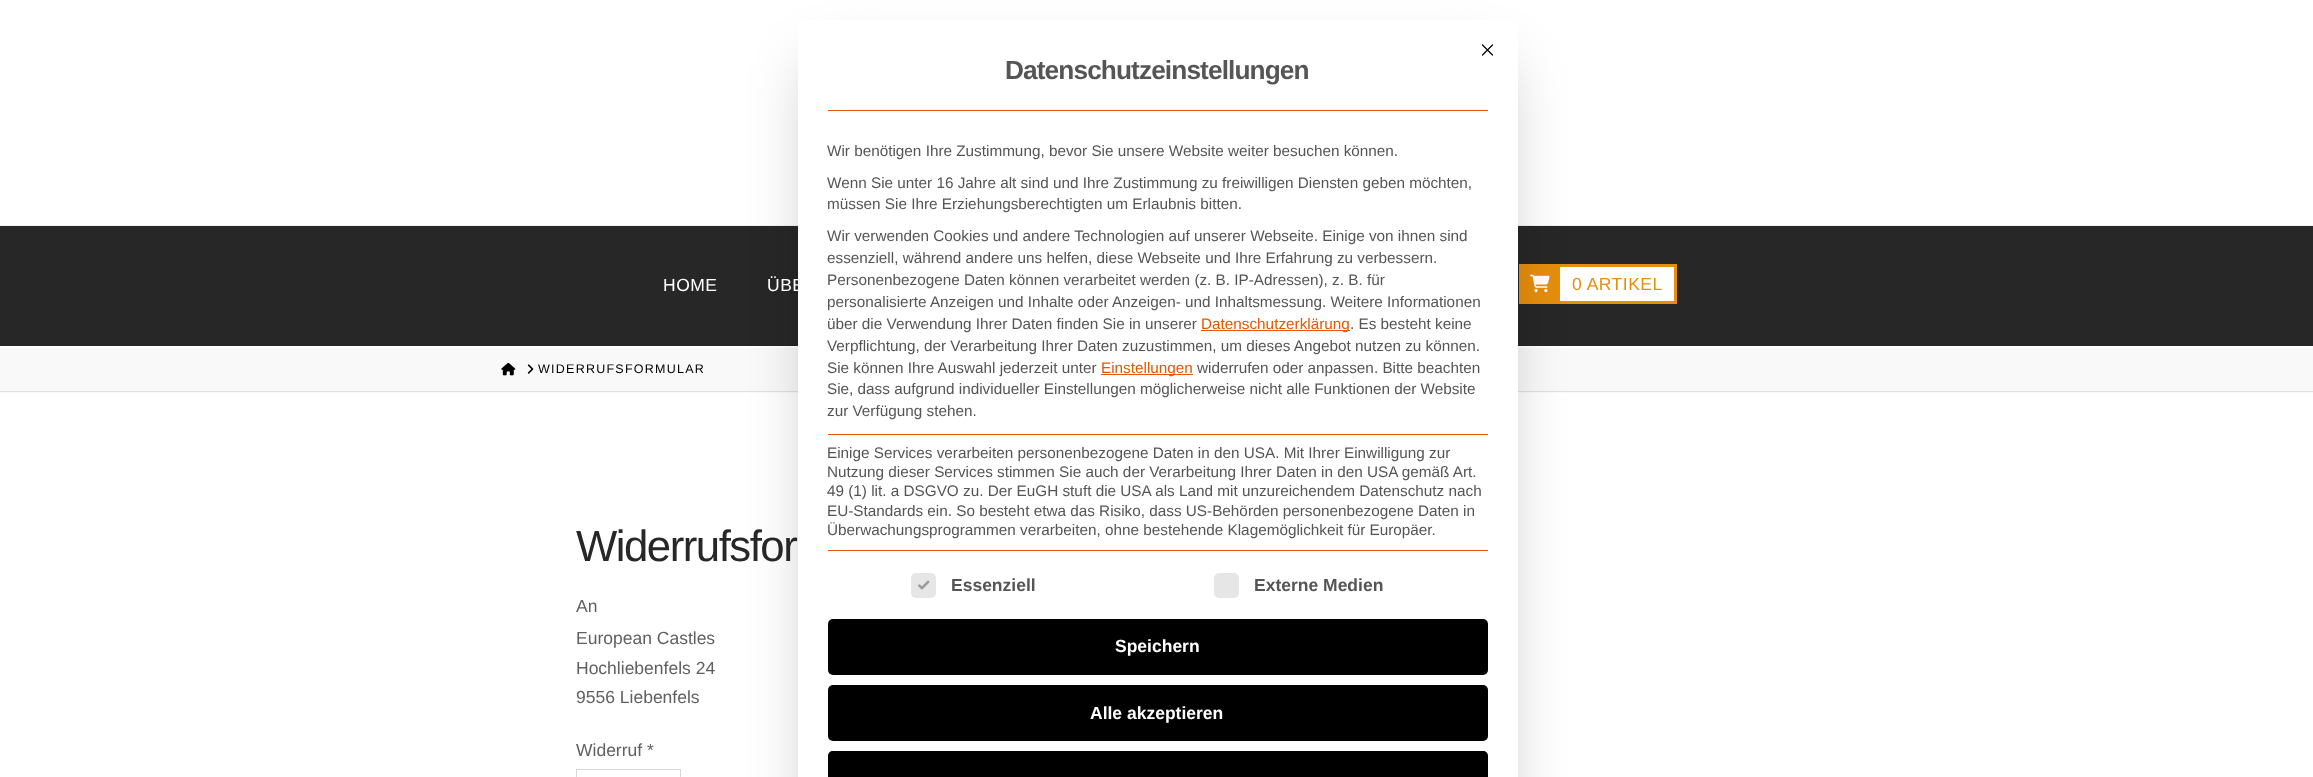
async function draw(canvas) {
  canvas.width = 2313
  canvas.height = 777
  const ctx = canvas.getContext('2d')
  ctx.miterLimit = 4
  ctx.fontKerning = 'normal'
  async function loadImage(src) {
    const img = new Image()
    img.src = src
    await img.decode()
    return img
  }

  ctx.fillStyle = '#fff'
  ctx.fillRect(0, 0, 2313, 777)
  ctx.fillStyle = '#f2f2f2'
  ctx.fillRect(0, 225, 2313, 1)
  ctx.fillStyle = '#272727'
  ctx.fillRect(0, 226, 2313, 120)
  ctx.fillStyle = '#fff'
  ctx.fillRect(1560, 267, 114, 34)
  ctx.fillStyle = '#e68e0d'
  ctx.fillRect(1519, 264, 157, 3)
  ctx.fillRect(1674, 264, 3, 40)
  ctx.fillRect(1519, 301, 157, 3)
  ctx.fillRect(1519, 267, 41, 34)
  ctx.drawImage(await loadImage('image1.png'), 1530, 274, 20, 19)
  ctx.fillStyle = '#f9f9f9'
  ctx.fillRect(0, 348, 2313, 45)
  ctx.fillStyle = '#e0e0e0'
  ctx.fillRect(0, 391, 2313, 1)
  ctx.fillStyle = '#00000040'
  ctx.filter = 'blur(31px)'
  ctx.beginPath()
  ctx.rect(813, 66, 690, 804)
  ctx.fill()
  ctx.filter = 'none'
  ctx.fillStyle = '#fff'
  ctx.beginPath()
  ctx.moveTo(803, 20)
  ctx.lineTo(1513, 20)
  ctx.bezierCurveTo(1516, 20, 1518, 22, 1518, 25)
  ctx.lineTo(1518, 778)
  ctx.lineTo(798, 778)
  ctx.lineTo(798, 25)
  ctx.bezierCurveTo(798, 22, 800, 20, 803, 20)
  ctx.closePath()
  ctx.fill()
  ctx.beginPath()
  ctx.moveTo(1482.5, 55)
  ctx.lineTo(1492.5, 45)
  ctx.moveTo(1482.5, 45)
  ctx.lineTo(1492.5, 55)
  ctx.strokeStyle = '#000'
  ctx.lineWidth = 1.2
  ctx.lineCap = 'round'
  ctx.lineJoin = 'round'
  ctx.stroke()
  ctx.fillStyle = '#e55700'
  ctx.fillRect(828, 110, 660, 1)
  ctx.letterSpacing = '-0.9px'
  ctx.font = 'bold 26.25px Liberation Sans'
  ctx.fillStyle = '#555'
  ctx.fillText('Datenschutzeinstellungen', 1005, 79)
  ctx.letterSpacing = '0px'
  ctx.font = '15.3px Liberation Sans'
  ctx.fillText('Wir benötigen Ihre Zustimmung, bevor Sie unsere Website weiter besuchen können.', 827, 156)
  ctx.fillText('Wenn Sie unter 16 Jahre alt sind und Ihre Zustimmung zu freiwilligen Diensten geben möchten,', 827, 188)
  ctx.fillText('müssen Sie Ihre Erziehungsberechtigten um Erlaubnis bitten.', 827, 209)
  ctx.fillText('Wir verwenden Cookies und andere Technologien auf unserer Webseite. Einige von ihnen sind', 827, 241)
  ctx.fillText('essenziell, während andere uns helfen, diese Webseite und Ihre Erfahrung zu verbessern.', 827, 263)
  ctx.fillText('Personenbezogene Daten können verarbeitet werden (z. B. IP-Adressen), z. B. für', 827, 285)
  ctx.fillText('personalisierte Anzeigen und Inhalte oder Anzeigen- und Inhaltsmessung. Weitere Informationen', 827, 307)
  ctx.fillText('über die Verwendung Ihrer Daten finden Sie in unserer', 827, 329)
  ctx.fillStyle = '#e55700'
  ctx.fillRect(1201, 330, 149, 1)
  ctx.fillText('Datenschutzerklärung', 1201, 329)
  ctx.fillStyle = '#555'
  ctx.fillText('. Es besteht keine', 1350, 329)
  ctx.fillText('Verpflichtung, der Verarbeitung Ihrer Daten zuzustimmen, um dieses Angebot nutzen zu können.', 827, 351)
  ctx.fillText('Sie können Ihre Auswahl jederzeit unter', 827, 373)
  ctx.fillStyle = '#e55700'
  ctx.fillRect(1101, 374, 92, 1)
  ctx.fillText('Einstellungen', 1101, 373)
  ctx.fillStyle = '#555'
  ctx.fillText('widerrufen oder anpassen. Bitte beachten', 1197, 373)
  ctx.fillText('Sie, dass aufgrund individueller Einstellungen möglicherweise nicht alle Funktionen der Website', 827, 394)
  ctx.fillText('zur Verfügung stehen.', 827, 416)
  ctx.fillStyle = '#e55700'
  ctx.fillRect(828, 434, 660, 1)
  ctx.fillRect(828, 550, 660, 1)
  ctx.fillStyle = '#555'
  ctx.fillText('Einige Services verarbeiten personenbezogene Daten in den USA. Mit Ihrer Einwilligung zur', 827, 458)
  ctx.fillText('Nutzung dieser Services stimmen Sie auch der Verarbeitung Ihrer Daten in den USA gemäß Art.', 827, 477)
  ctx.fillText('49 (1) lit. a DSGVO zu. Der EuGH stuft die USA als Land mit unzureichendem Datenschutz nach', 827, 496)
  ctx.fillText('EU-Standards ein. So besteht etwa das Risiko, dass US-Behörden personenbezogene Daten in', 827, 516)
  ctx.fillText('Überwachungsprogrammen verarbeiten, ohne bestehende Klagemöglichkeit für Europäer.', 827, 535)
  ctx.fillStyle = '#e6e6e6'
  ctx.beginPath()
  ctx.roundRect(912.5, 574.5, 22, 22, 3.5)
  ctx.fill()
  ctx.strokeStyle = '#e6e6e6'
  ctx.lineWidth = 3
  ctx.lineJoin = 'miter'
  ctx.stroke()
  ctx.drawImage(await loadImage('image0.png'), 918, 580, 12, 10)
  ctx.font = 'bold 17.5px Liberation Sans'
  ctx.fillStyle = '#555'
  ctx.fillText('Essenziell', 951, 591)
  ctx.fillStyle = '#e6e6e6'
  ctx.beginPath()
  ctx.roundRect(1215.5, 574.5, 22, 22, 3.5)
  ctx.fill()
  ctx.stroke()
  ctx.fillStyle = '#555'
  ctx.fillText('Externe Medien', 1254, 591)
  ctx.fillStyle = '#000'
  ctx.beginPath()
  ctx.roundRect(828, 619, 660, 56, 5)
  ctx.fill()
  ctx.fillStyle = '#fff'
  ctx.fillText('Speichern', 1115, 652)
  ctx.fillStyle = '#000'
  ctx.beginPath()
  ctx.roundRect(828, 685, 660, 56, 5)
  ctx.fill()
  ctx.fillStyle = '#fff'
  ctx.fillText('Alle akzeptieren', 1090, 719)
  ctx.fillStyle = '#000'
  ctx.beginPath()
  ctx.moveTo(833, 751)
  ctx.lineTo(1483, 751)
  ctx.bezierCurveTo(1486, 751, 1488, 753, 1488, 756)
  ctx.lineTo(1488, 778)
  ctx.lineTo(828, 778)
  ctx.lineTo(828, 756)
  ctx.bezierCurveTo(828, 753, 830, 751, 833, 751)
  ctx.closePath()
  ctx.fill()
  ctx.letterSpacing = '0.5px'
  ctx.font = '17.5px Liberation Sans'
  ctx.fillStyle = '#fff'
  ctx.fillText('HOME', 663, 291)
  ctx.fillText('ÜBE', 767, 291)
  ctx.fillStyle = '#e68e0d'
  ctx.fillText('0 ARTIKEL', 1572, 290)
  ctx.drawImage(await loadImage('image2.png'), 501, 362, 15, 14)
  ctx.drawImage(await loadImage('image3.png'), 527, 364, 7, 10)
  ctx.letterSpacing = '1.25px'
  ctx.font = '12.5px Liberation Sans'
  ctx.fillStyle = '#000'
  ctx.fillText('WIDERRUFSFORMULAR', 538, 373)
  ctx.letterSpacing = '-1.5px'
  ctx.font = '43.75px Liberation Sans'
  ctx.fillStyle = '#272727'
  ctx.fillText('Widerrufsfor', 576, 561)
  ctx.letterSpacing = '0px'
  ctx.font = '17.5px Liberation Sans'
  ctx.fillStyle = '#606060'
  ctx.fillText('An', 576, 612)
  ctx.fillText('European Castles', 576, 644)
  ctx.fillText('Hochliebenfels 24', 576, 674)
  ctx.fillText('9556 Liebenfels', 576, 703)
  ctx.fillText('Widerruf *', 576, 756)
  ctx.strokeStyle = '#d9d9d9'
  ctx.lineWidth = 1
  ctx.strokeRect(576.5, 769.5, 104, 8)
}

draw(document.querySelector('canvas'))
